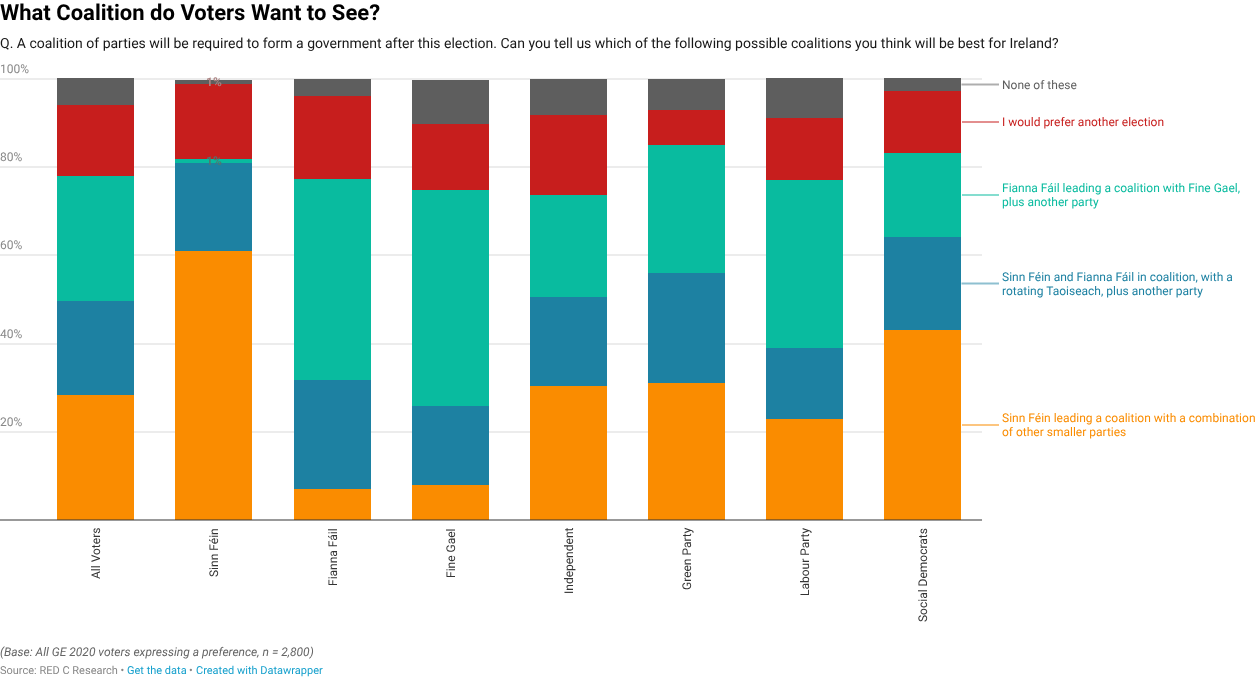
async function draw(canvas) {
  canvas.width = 1259
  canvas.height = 686
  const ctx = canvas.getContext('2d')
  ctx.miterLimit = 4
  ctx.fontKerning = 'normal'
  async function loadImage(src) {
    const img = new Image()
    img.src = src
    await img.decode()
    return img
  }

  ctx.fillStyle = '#fff'
  ctx.fillRect(0, 0, 1259, 686)
  ctx.font = 'bold 22px Roboto'
  ctx.fillStyle = '#000'
  ctx.fillText('What Coalition do Voters Want to See?', 0, 20)
  ctx.font = '14px Roboto'
  ctx.fillStyle = '#181818'
  ctx.fillText('Q. A coalition of parties will be required to form a government after this election. Can you tell us which of the following possible coalitions you think will be best for Ireland?', 0, 48)
  ctx.font = '12px Roboto'
  ctx.fillStyle = '#888'
  ctx.fillText('100%', 0, 73)
  ctx.drawImage(await loadImage('image0.png'), 0, 78, 999, 443)
  ctx.font = 'bold 12px Roboto'
  ctx.fillStyle = '#aa8281'
  ctx.fillText('1%', 206, 86)
  ctx.font = '12px Roboto'
  ctx.fillStyle = '#5e5e5e'
  ctx.fillText('None of these', 1002, 89)
  ctx.fillStyle = '#c71e1d'
  ctx.fillText('I would prefer another election', 1002, 126)
  ctx.fillStyle = '#888'
  ctx.fillText('80%', 0, 161)
  ctx.font = 'bold 12px Roboto'
  ctx.fillStyle = '#507672'
  ctx.fillText('1%', 206, 165)
  ctx.font = '12px Roboto'
  ctx.fillStyle = '#09bb9f'
  ctx.fillText('Fianna Fáil leading a coalition with Fine Gael,', 1002, 192)
  ctx.fillText('plus another party', 1002, 206)
  ctx.fillStyle = '#888'
  ctx.fillText('60%', 0, 249)
  ctx.fillStyle = '#1d81a2'
  ctx.fillText('Sinn Féin and Fianna Fáil in coalition, with a', 1002, 281)
  ctx.fillText('rotating Taoiseach, plus another party', 1002, 295)
  ctx.fillStyle = '#888'
  ctx.fillText('40%', 0, 338)
  ctx.fillText('20%', 0, 426)
  ctx.fillStyle = '#fa8c00'
  ctx.fillText('Sinn Féin leading a coalition with a combination', 1002, 422)
  ctx.fillText('of other smaller parties', 1002, 436)
  ctx.fillStyle = '#333'
  ctx.save()
  ctx.translate(100, 579)
  ctx.rotate(-90 * Math.PI / 180)
  ctx.fillText('All Voters', 0, 0)
  ctx.restore()
  ctx.save()
  ctx.translate(218, 577)
  ctx.rotate(-90 * Math.PI / 180)
  ctx.fillText('Sinn Féin', 0, 0)
  ctx.restore()
  ctx.save()
  ctx.translate(337, 586)
  ctx.rotate(-90 * Math.PI / 180)
  ctx.fillText('Fianna Fáil', 0, 0)
  ctx.restore()
  ctx.save()
  ctx.translate(455, 578)
  ctx.rotate(-90 * Math.PI / 180)
  ctx.fillText('Fine Gael', 0, 0)
  ctx.restore()
  ctx.save()
  ctx.translate(573, 594)
  ctx.rotate(-90 * Math.PI / 180)
  ctx.fillText('Independent', 0, 0)
  ctx.restore()
  ctx.save()
  ctx.translate(691, 590)
  ctx.rotate(-90 * Math.PI / 180)
  ctx.fillText('Green Party', 0, 0)
  ctx.restore()
  ctx.save()
  ctx.translate(809, 596)
  ctx.rotate(-90 * Math.PI / 180)
  ctx.fillText('Labour Party', 0, 0)
  ctx.restore()
  ctx.save()
  ctx.translate(927, 622)
  ctx.rotate(-90 * Math.PI / 180)
  ctx.fillText('Social Democrats', 0, 0)
  ctx.restore()
  ctx.font = 'italic 12px Roboto'
  ctx.fillStyle = '#656565'
  ctx.fillText('(Base: All GE 2020 voters expressing a preference, n = 2,800)', 0, 656)
  ctx.font = '11px Roboto'
  ctx.fillStyle = '#888'
  ctx.fillText('Source: RED C Research •', 0, 674)
  ctx.fillStyle = '#18a1cd'
  ctx.fillText('Get the data', 127, 674)
  ctx.fillStyle = '#888'
  ctx.fillText('•', 189, 674)
  ctx.fillStyle = '#18a1cd'
  ctx.fillText('Created with Datawrapper', 196, 674)
}

draw(document.querySelector('canvas'))
